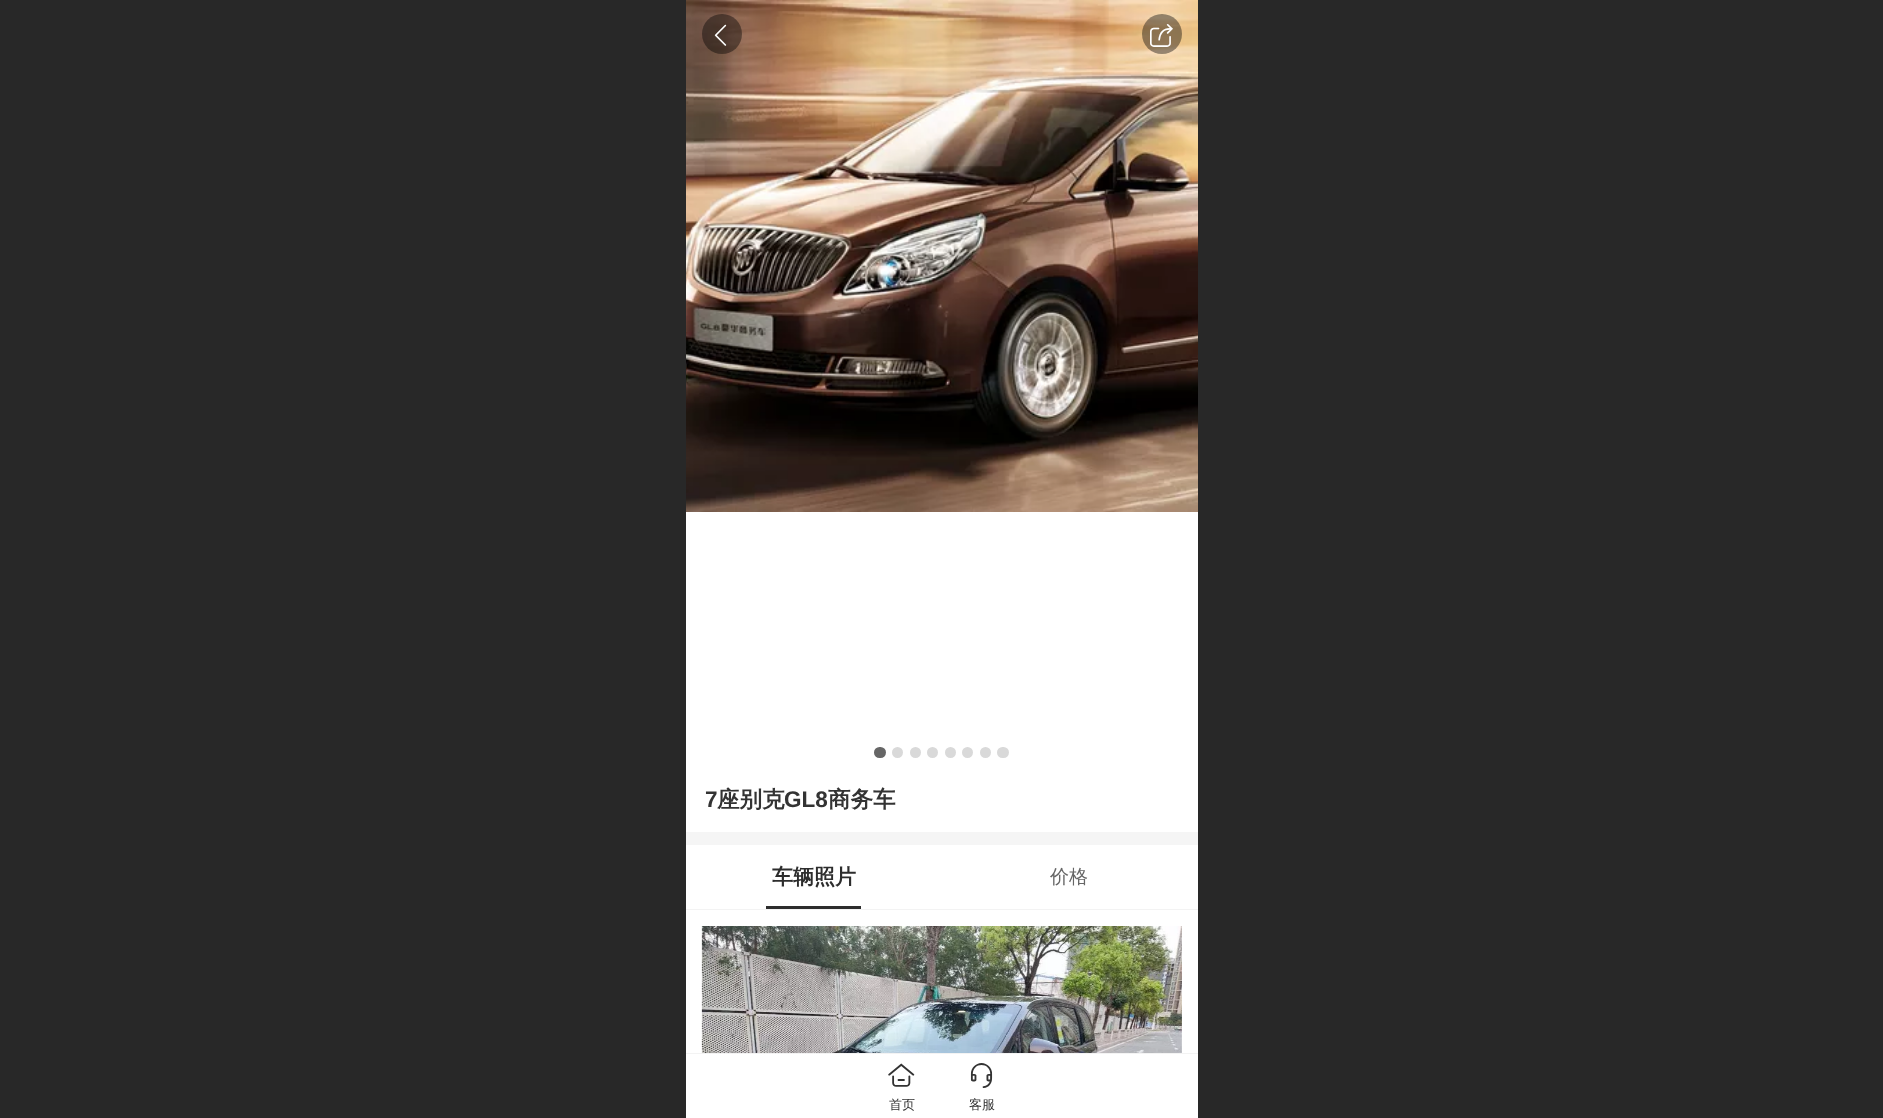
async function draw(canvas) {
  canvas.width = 1883
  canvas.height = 1118
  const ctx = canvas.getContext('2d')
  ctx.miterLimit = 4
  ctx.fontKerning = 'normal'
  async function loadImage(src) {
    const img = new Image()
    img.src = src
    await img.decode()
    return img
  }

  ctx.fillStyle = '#fff'
  ctx.fillRect(0, 0, 1883, 1118)
  ctx.fillStyle = '#282828'
  ctx.fillRect(0, 0, 686, 1118)
  ctx.drawImage(await loadImage('image0.png'), 686, 0, 512, 512)
  ctx.fillStyle = '#00000066'
  ctx.beginPath()
  ctx.arc(722, 34, 20, 0, 2 * Math.PI)
  ctx.fill()
  ctx.font = '21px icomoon'
  ctx.fillStyle = '#fff'
  ctx.fillText('򰊔', 710, 44)
  ctx.fillStyle = '#00000066'
  ctx.beginPath()
  ctx.arc(1162, 34, 20, 0, 2 * Math.PI)
  ctx.fill()
  ctx.font = '23px icomoon'
  ctx.fillStyle = '#fff'
  ctx.fillText('򰌑', 1150, 45)
  ctx.fillStyle = '#666'
  ctx.beginPath()
  ctx.roundRect(874, 747, 12, 11, 5.5)
  ctx.fill()
  ctx.fillStyle = '#d9d9d9'
  ctx.beginPath()
  ctx.arc(897.5, 752.5, 5.5, 0, 2 * Math.PI)
  ctx.fill()
  ctx.beginPath()
  ctx.arc(915.5, 752.5, 5.5, 0, 2 * Math.PI)
  ctx.fill()
  ctx.beginPath()
  ctx.arc(932.5, 752.5, 5.5, 0, 2 * Math.PI)
  ctx.fill()
  ctx.beginPath()
  ctx.arc(950.5, 752.5, 5.5, 0, 2 * Math.PI)
  ctx.fill()
  ctx.beginPath()
  ctx.arc(967.5, 752.5, 5.5, 0, 2 * Math.PI)
  ctx.fill()
  ctx.beginPath()
  ctx.arc(985.5, 752.5, 5.5, 0, 2 * Math.PI)
  ctx.fill()
  ctx.beginPath()
  ctx.roundRect(997, 747, 12, 11, 5.5)
  ctx.fill()
  ctx.font = 'bold 22.5px Liberation Sans'
  ctx.fillStyle = '#333'
  ctx.fillText('7', 705, 807)
  ctx.font = 'bold 22.5px WenQuanYi Zen Hei'
  ctx.fillText('座别克', 717, 807)
  ctx.font = 'bold 22.5px Liberation Sans'
  ctx.fillText('GL8', 784, 807)
  ctx.font = 'bold 22.5px WenQuanYi Zen Hei'
  ctx.fillText('商务车', 828, 807)
  ctx.fillStyle = '#f5f5f5'
  ctx.fillRect(686, 832, 512, 13)
  ctx.fillStyle = '#f3f3f3'
  ctx.fillRect(686, 909, 512, 1)
  ctx.fillStyle = '#2d2d2d'
  ctx.fillRect(766, 906, 95, 3)
  ctx.font = 'bold 21px WenQuanYi Zen Hei'
  ctx.fillText('车辆照片', 772, 884)
  ctx.font = '500 19px WenQuanYi Zen Hei'
  ctx.fillStyle = '#666'
  ctx.fillText('价格', 1050, 883)
  ctx.drawImage(await loadImage('image1.png'), 701, 926, 481, 127)
  ctx.fillStyle = '#f3f3f3'
  ctx.fillRect(686, 1053, 512, 1)
  ctx.font = '26px icomoon'
  ctx.fillStyle = '#333'
  ctx.fillText('򰌓', 888, 1086)
  ctx.font = '500 13px WenQuanYi Zen Hei'
  ctx.fillText('首页', 889, 1109)
  ctx.font = '25px icomoon'
  ctx.fillText('򰊘', 969, 1086)
  ctx.font = '500 13px WenQuanYi Zen Hei'
  ctx.fillText('客服', 969, 1109)
  ctx.fillStyle = '#282828'
  ctx.fillRect(1198, 0, 685, 1118)
}

draw(document.querySelector('canvas'))
